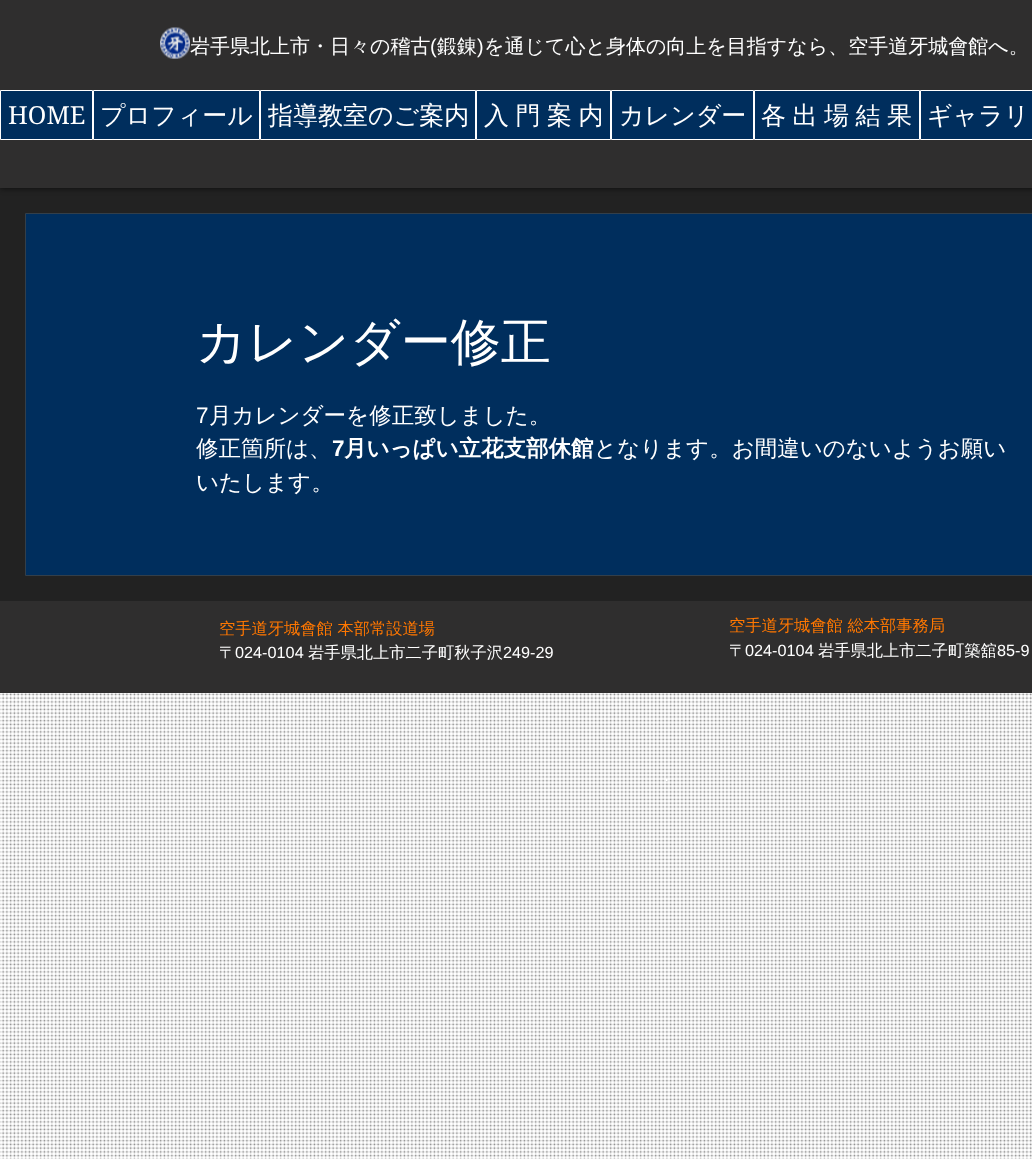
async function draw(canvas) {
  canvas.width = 1032
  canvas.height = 1159
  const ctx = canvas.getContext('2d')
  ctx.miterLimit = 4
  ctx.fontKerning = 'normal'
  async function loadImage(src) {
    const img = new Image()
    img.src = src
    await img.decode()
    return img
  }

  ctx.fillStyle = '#fff'
  ctx.fillRect(0, 0, 1032, 1159)
  ctx.fillStyle = '#222'
  ctx.fillRect(0, 188, 1032, 413)
  ctx.fillStyle = '#000000b3'
  ctx.filter = 'blur(3px)'
  ctx.beginPath()
  ctx.rect(0, 0, 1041, 188)
  ctx.fill()
  ctx.filter = 'none'
  ctx.fillStyle = '#2f2e2e'
  ctx.fillRect(0, 0, 1032, 188)
  ctx.drawImage(await loadImage('image0.png'), 160, 27, 30, 32)
  ctx.font = '500 20px WenQuanYi Zen Hei'
  ctx.fillStyle = '#fff'
  ctx.fillText('岩手県北上市・日々の稽古', 190, 53)
  ctx.font = '20px Liberation Sans'
  ctx.fillText('(', 430, 53)
  ctx.font = '500 20px WenQuanYi Zen Hei'
  ctx.fillText('鍛錬', 437, 53)
  ctx.font = '20px Liberation Sans'
  ctx.fillText(')', 477, 53)
  ctx.font = '500 20px WenQuanYi Zen Hei'
  ctx.fillText('を通じて心と身体の向上を目指すなら、空手道牙城會館へ。', 484, 53)
  ctx.fillStyle = '#002e5d'
  ctx.beginPath()
  ctx.rect(0.5, 90.5, 92, 49)
  ctx.fill()
  ctx.strokeStyle = '#fff'
  ctx.stroke()
  ctx.font = '25px "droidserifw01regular"'
  ctx.fillStyle = '#fff'
  ctx.fillText('HOME', 8, 124)
  ctx.fillStyle = '#002e5d'
  ctx.beginPath()
  ctx.rect(93.5, 90.5, 166, 49)
  ctx.fill()
  ctx.stroke()
  ctx.font = '500 25px WenQuanYi Zen Hei'
  ctx.fillStyle = '#fff'
  ctx.fillText('プロフィール', 100, 124)
  ctx.fillStyle = '#002e5d'
  ctx.beginPath()
  ctx.rect(260.5, 90.5, 215, 49)
  ctx.fill()
  ctx.stroke()
  ctx.fillStyle = '#fff'
  ctx.fillText('指導教室のご案内', 268, 124)
  ctx.fillStyle = '#002e5d'
  ctx.beginPath()
  ctx.rect(476.5, 90.5, 134, 49)
  ctx.fill()
  ctx.stroke()
  ctx.wordSpacing = '-1px'
  ctx.fillStyle = '#fff'
  ctx.fillText('入 門 案 内', 484, 124)
  ctx.fillStyle = '#002e5d'
  ctx.beginPath()
  ctx.rect(611.5, 90.5, 142, 49)
  ctx.fill()
  ctx.stroke()
  ctx.wordSpacing = '0px'
  ctx.fillStyle = '#fff'
  ctx.fillText('カレンダー', 619, 124)
  ctx.fillStyle = '#002e5d'
  ctx.beginPath()
  ctx.rect(754.5, 90.5, 165, 49)
  ctx.fill()
  ctx.stroke()
  ctx.wordSpacing = '-1px'
  ctx.fillStyle = '#fff'
  ctx.fillText('各 出 場 結 果', 761, 124)
  ctx.fillStyle = '#002e5d'
  ctx.beginPath()
  ctx.rect(920.5, 90.5, 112, 49)
  ctx.fill()
  ctx.stroke()
  ctx.wordSpacing = '0px'
  ctx.fillStyle = '#fff'
  ctx.fillText('ギャラリ', 927, 124)
  ctx.fillStyle = '#002e5d'
  ctx.beginPath()
  ctx.rect(25.5, 213.5, 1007, 362)
  ctx.fill()
  ctx.strokeStyle = '#333f4a'
  ctx.stroke()
  ctx.font = '500 50px WenQuanYi Zen Hei'
  ctx.fillStyle = '#fff'
  ctx.fillText('カレンダー修正', 196, 359)
  ctx.font = '22.5px Liberation Sans'
  ctx.fillText('7', 196, 423)
  ctx.font = '500 22.5px WenQuanYi Zen Hei'
  ctx.fillText('月カレンダーを修正致しました。', 209, 423)
  ctx.fillText('修正箇所は、', 196, 456)
  ctx.font = 'bold 22.5px Liberation Sans'
  ctx.fillText('7', 332, 456)
  ctx.font = 'bold 22.5px WenQuanYi Zen Hei'
  ctx.fillText('月いっぱい立花支部休館', 344, 456)
  ctx.font = '500 22.5px WenQuanYi Zen Hei'
  ctx.fillText('となります。お間違いのないようお願い', 594, 456)
  ctx.fillText('いたします。', 196, 490)
  ctx.fillStyle = '#2f2e2e'
  ctx.fillRect(0, 601, 1032, 92)
  ctx.font = '500 16.25px WenQuanYi Zen Hei'
  ctx.fillStyle = '#f70'
  ctx.fillText('空手道牙城會館 本部常設道場', 219, 634)
  ctx.fillStyle = '#fff'
  ctx.fillText('〒', 219, 658)
  ctx.font = '16.25px Liberation Sans'
  ctx.fillText('024-0104', 235, 658)
  ctx.font = '500 16.25px WenQuanYi Zen Hei'
  ctx.fillText('岩手県北上市二子町秋子沢', 308, 658)
  ctx.font = '16.25px Liberation Sans'
  ctx.fillText('249-29', 503, 658)
  ctx.font = '500 16.25px WenQuanYi Zen Hei'
  ctx.fillStyle = '#f70'
  ctx.fillText('空手道牙城會館 総本部事務局', 729, 631)
  ctx.fillStyle = '#fff'
  ctx.fillText('〒', 729, 656)
  ctx.font = '16.25px Liberation Sans'
  ctx.fillText('024-0104', 745, 656)
  ctx.font = '500 16.25px WenQuanYi Zen Hei'
  ctx.fillText('岩手県北上市二子町築舘', 818, 656)
  ctx.font = '16.25px Liberation Sans'
  ctx.fillText('85-9', 997, 656)
  ctx.drawImage(await loadImage('image1.png'), 0, 693, 1032, 466)
  ctx.font = '19px Liberation Sans'
  ctx.fillText('.', 664, 781)
}

draw(document.querySelector('canvas'))
